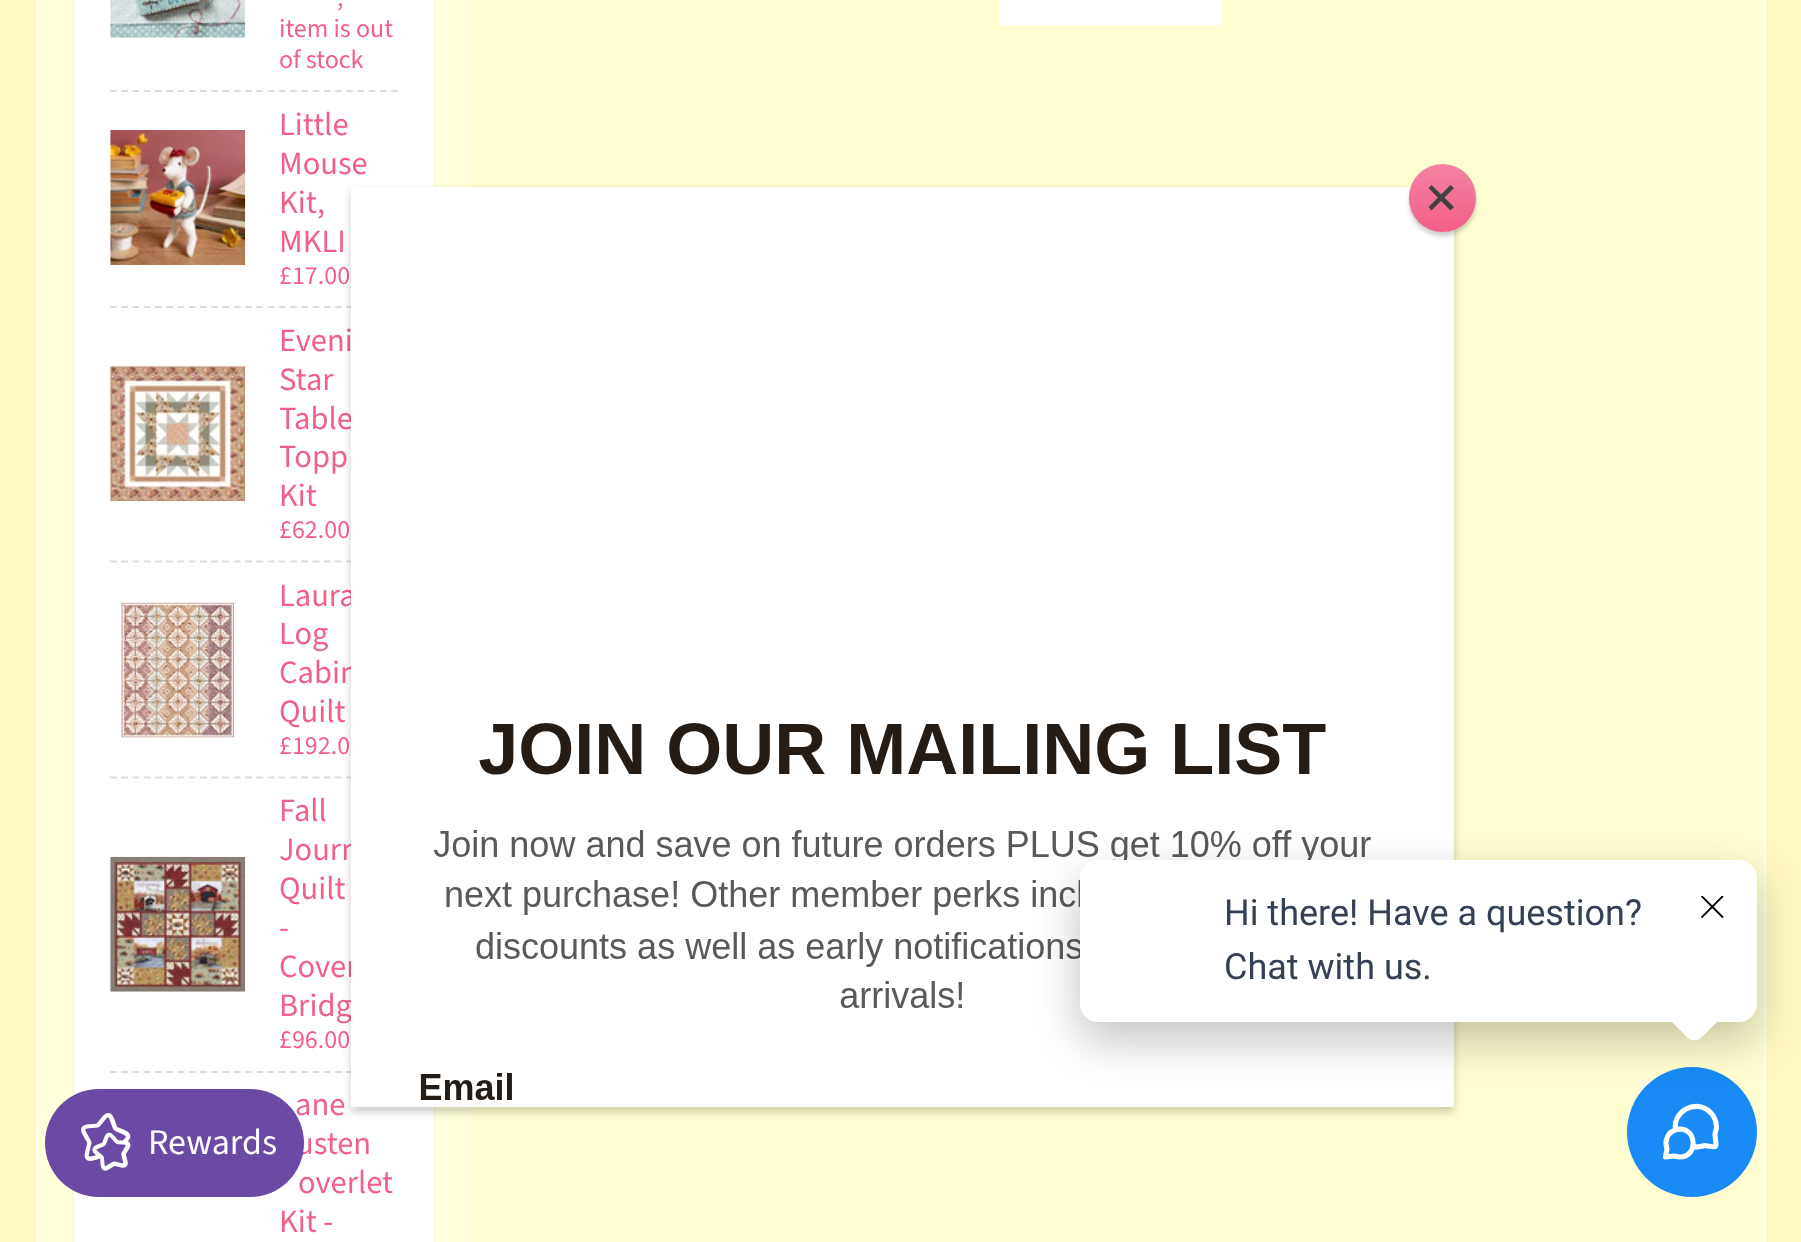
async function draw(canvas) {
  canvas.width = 1801
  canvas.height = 1242
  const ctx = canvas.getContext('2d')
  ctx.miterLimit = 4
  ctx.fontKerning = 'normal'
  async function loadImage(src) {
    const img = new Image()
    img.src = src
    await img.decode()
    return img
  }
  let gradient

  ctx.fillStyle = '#fff9c1'
  ctx.fillRect(0, 0, 1801, 1242)
  ctx.fillStyle = '#fffed0'
  ctx.fillRect(470, 0, 1294, 1242)
  ctx.strokeStyle = '#fffff1'
  ctx.lineWidth = 2
  ctx.strokeRect(37, -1, 1728, 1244)
  ctx.fillStyle = '#ffffdc'
  ctx.fillRect(38, 0, 432, 1242)
  ctx.fillStyle = '#0000001a'
  ctx.filter = 'blur(1px)'
  ctx.beginPath()
  ctx.roundRect(74, -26, 360, 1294, 23)
  ctx.fill()
  ctx.filter = 'none'
  ctx.fillStyle = '#fff'
  ctx.fillRect(74, 0, 360, 1242)
  ctx.drawImage(await loadImage('image0.png'), 110, 0, 136, 38)
  ctx.font = '26px Source Sans Pro'
  ctx.fillStyle = '#f25f89'
  ctx.fillText(',', 337, 6)
  ctx.fillText('item is out', 279, 37)
  ctx.fillText('of stock', 279, 68)
  ctx.beginPath()
  ctx.moveTo(110, 91)
  ctx.lineTo(398, 91)
  ctx.strokeStyle = '#ddd'
  ctx.lineWidth = 2.2
  ctx.setLineDash([6.75, 4.5])
  ctx.stroke()
  ctx.drawImage(await loadImage('image1.png'), 110, 130, 136, 135)
  ctx.font = '32.5px Source Sans Pro'
  ctx.fillText('Little', 279, 135)
  ctx.fillText('Mouse', 279, 174)
  ctx.fillText('Kit,', 279, 213)
  ctx.fillText('MKLI', 279, 252)
  ctx.font = '26px Source Sans Pro'
  ctx.fillText('£17.00', 279, 284)
  ctx.beginPath()
  ctx.moveTo(110, 307)
  ctx.lineTo(398, 307)
  ctx.stroke()
  ctx.drawImage(await loadImage('image2.png'), 110, 366, 136, 136)
  ctx.font = '32.5px Source Sans Pro'
  ctx.fillText('Eveni', 279, 351)
  ctx.fillText('Star', 279, 390)
  ctx.fillText('Table', 279, 429)
  ctx.fillText('Topp', 279, 467)
  ctx.fillText('Kit', 279, 506)
  ctx.font = '26px Source Sans Pro'
  ctx.fillText('£62.00', 279, 538)
  ctx.beginPath()
  ctx.moveTo(110, 561.5)
  ctx.lineTo(398, 561.5)
  ctx.stroke()
  ctx.drawImage(await loadImage('image3.png'), 121, 602, 113, 136)
  ctx.font = '32.5px Source Sans Pro'
  ctx.fillText('Laura', 279, 606)
  ctx.fillText('Log', 279, 644)
  ctx.fillText('Cabin', 279, 683)
  ctx.fillText('Quilt', 279, 722)
  ctx.font = '26px Source Sans Pro'
  ctx.fillText('£192.0', 279, 754)
  ctx.beginPath()
  ctx.moveTo(110, 777.5)
  ctx.lineTo(398, 777.5)
  ctx.stroke()
  ctx.drawImage(await loadImage('image4.png'), 110, 856, 136, 136)
  ctx.font = '32.5px Source Sans Pro'
  ctx.fillText('Fall', 279, 821)
  ctx.fillText('Journ', 279, 860)
  ctx.fillText('Quilt', 279, 899)
  ctx.fillText('-', 279, 938)
  ctx.fillText('Cover', 279, 977)
  ctx.fillText('Bridg', 279, 1016)
  ctx.font = '26px Source Sans Pro'
  ctx.fillText('£96.00', 279, 1048)
  ctx.beginPath()
  ctx.moveTo(110, 1072)
  ctx.lineTo(398, 1072)
  ctx.stroke()
  ctx.font = '32.5px Source Sans Pro'
  ctx.fillText('ane', 295, 1115)
  ctx.fillText('usten', 296, 1154)
  ctx.fillText('overlet', 298, 1193)
  ctx.fillText('Kit -', 279, 1232)
  ctx.fillStyle = '#fff'
  ctx.fillRect(999, 0, 223, 25)
  ctx.fillStyle = '#00000033'
  ctx.filter = 'blur(4.5px)'
  ctx.beginPath()
  ctx.rect(351, 191, 1103, 921)
  ctx.fill()
  ctx.filter = 'none'
  ctx.drawImage(await loadImage('image5.png'), 351, 187, 1103, 920)
  ctx.filter = 'blur(2px)'
  ctx.beginPath()
  ctx.roundRect(1409, 169, 67, 67, 33.5)
  ctx.fill()
  ctx.filter = 'none'
  gradient = ctx.createLinearGradient(1442, 164, 1442, 232)
  gradient.addColorStop(0, '#f483a3')
  gradient.addColorStop(1, '#f25f89')
  ctx.fillStyle = gradient
  ctx.beginPath()
  ctx.roundRect(1409, 164, 67, 68, 33.5)
  ctx.fill()
  ctx.fillStyle = '#414141'
  ctx.beginPath()
  ctx.moveTo(1450.5, 185)
  ctx.lineTo(1454, 188)
  ctx.lineTo(1431.5, 210.5)
  ctx.lineTo(1428.5, 207)
  ctx.closePath()
  ctx.fill()
  ctx.beginPath()
  ctx.moveTo(1428.5, 188)
  ctx.lineTo(1431.5, 185)
  ctx.lineTo(1454, 207)
  ctx.lineTo(1450.5, 210.5)
  ctx.closePath()
  ctx.fill()
  ctx.drawImage(await loadImage('image7.png'), 1640, 1080, 14, 13)
  ctx.fillStyle = '#188bf6'
  ctx.beginPath()
  ctx.arc(1692, 1132, 65, 0, 2 * Math.PI)
  ctx.fill()
  ctx.beginPath()
  ctx.moveTo(1675.5, 1130)
  ctx.bezierCurveTo(1672.5, 1110.5, 1696.5, 1098.5, 1710.5, 1112.5)
  ctx.bezierCurveTo(1714.5, 1116.5, 1716, 1121, 1716.5, 1126.5)
  ctx.bezierCurveTo(1716.5, 1129.5, 1715, 1132, 1715, 1135)
  ctx.lineTo(1716, 1144.5)
  ctx.lineTo(1715.5, 1146.5)
  ctx.bezierCurveTo(1714, 1147.5, 1706.5, 1145.5, 1705, 1145.5)
  ctx.lineTo(1700.5, 1146.5)
  ctx.bezierCurveTo(1698, 1147, 1695.5, 1147, 1693, 1147)
  ctx.moveTo(1679.5, 1157)
  ctx.bezierCurveTo(1699.5, 1157, 1696.5, 1125.5, 1677, 1129.5)
  ctx.bezierCurveTo(1672.5, 1130.5, 1668.5, 1133.5, 1667, 1138)
  ctx.bezierCurveTo(1666, 1140.5, 1665.5, 1143.5, 1666.5, 1146.5)
  ctx.lineTo(1667, 1149)
  ctx.lineTo(1665.5, 1157)
  ctx.lineTo(1674.5, 1156)
  ctx.closePath()
  ctx.strokeStyle = '#fff'
  ctx.lineWidth = 5.1
  ctx.lineCap = 'round'
  ctx.lineJoin = 'round'
  ctx.setLineDash([])
  ctx.stroke()
  ctx.fillStyle = '#0000003d'
  ctx.filter = 'blur(22.5px)'
  ctx.beginPath()
  ctx.roundRect(1080, 878, 677, 162, 18)
  ctx.fill()
  ctx.filter = 'none'
  ctx.fillStyle = '#fff'
  ctx.beginPath()
  ctx.roundRect(1080, 860, 677, 162, 18)
  ctx.fill()
  ctx.font = '36px Roboto'
  ctx.fillStyle = '#344054'
  ctx.fillText('Hi there! Have a question?', 1224, 925)
  ctx.fillText('Chat with us.', 1224, 979)
  ctx.fillStyle = '#fff'
  ctx.beginPath()
  ctx.moveTo(1701, 987)
  ctx.lineTo(1720, 1006)
  ctx.bezierCurveTo(1723, 1010, 1723, 1015, 1720, 1019)
  ctx.lineTo(1701, 1038)
  ctx.bezierCurveTo(1697, 1041, 1691, 1041, 1688, 1038)
  ctx.lineTo(1669, 1019)
  ctx.bezierCurveTo(1665, 1015, 1665, 1010, 1669, 1006)
  ctx.lineTo(1688, 987)
  ctx.bezierCurveTo(1691, 984, 1697, 984, 1701, 987)
  ctx.closePath()
  ctx.fill()
  ctx.drawImage(await loadImage('image6.png'), 1701, 896, 23, 22)
  ctx.fillStyle = '#6b4aa5'
  ctx.beginPath()
  ctx.roundRect(45, 1089, 259, 108, 54)
  ctx.fill()
  ctx.drawImage(await loadImage('image8.png'), 81, 1113, 50, 58)
  ctx.font = '36px Source Sans Pro'
  ctx.fillStyle = '#fff'
  ctx.fillText('Rewards', 148, 1154)
}

draw(document.querySelector('canvas'))
